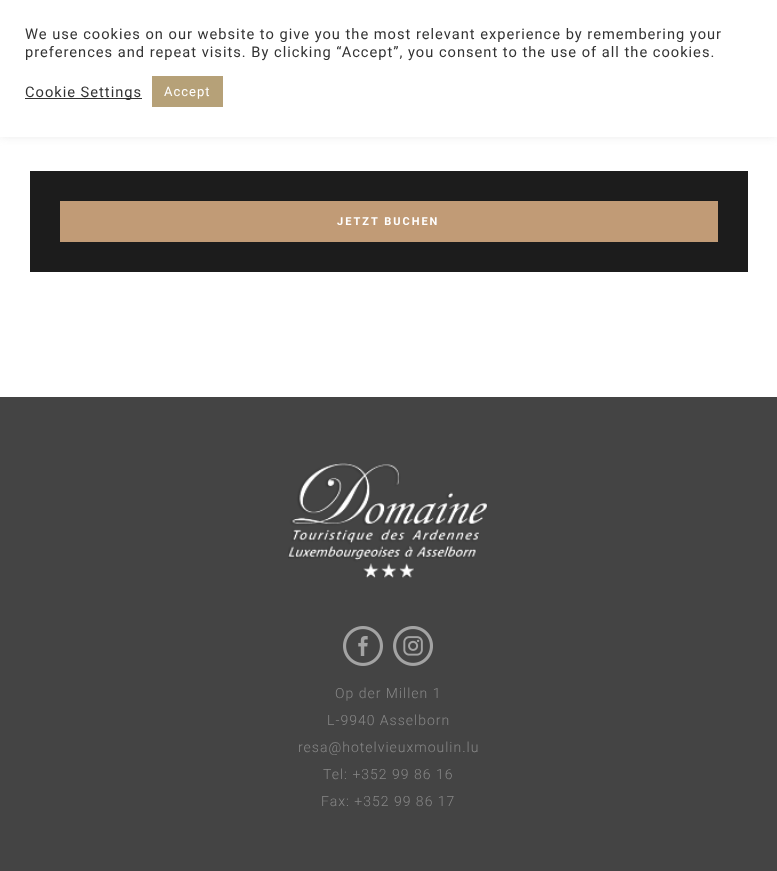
async function draw(canvas) {
  canvas.width = 777
  canvas.height = 871
  const ctx = canvas.getContext('2d')
  ctx.miterLimit = 4
  ctx.fontKerning = 'normal'
  async function loadImage(src) {
    const img = new Image()
    img.src = src
    await img.decode()
    return img
  }

  ctx.fillStyle = '#fff'
  ctx.fillRect(0, 0, 777, 871)
  ctx.fillStyle = '#acabab4d'
  ctx.filter = 'blur(5px)'
  ctx.beginPath()
  ctx.rect(0, -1, 777, 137)
  ctx.fill()
  ctx.filter = 'none'
  ctx.fillStyle = '#fff'
  ctx.fillRect(0, 0, 777, 137)
  ctx.letterSpacing = '1px'
  ctx.font = '14.65px Roboto'
  ctx.fillStyle = '#333'
  ctx.fillText('We use cookies on our website to give you the most relevant experience by remembering your', 25, 39)
  ctx.fillText('preferences and repeat visits. By clicking “Accept”, you consent to the use of all the cookies.', 25, 57)
  ctx.fillRect(25, 98, 117, 1)
  ctx.fillText('Cookie Settings', 25, 97)
  ctx.fillStyle = '#b6a178'
  ctx.fillRect(152, 76, 71, 31)
  ctx.font = '13px Roboto'
  ctx.fillStyle = '#fff'
  ctx.fillText('Accept', 164, 96)
  ctx.fillStyle = '#1c1c1c'
  ctx.fillRect(30, 171, 718, 101)
  ctx.fillStyle = '#c19b76'
  ctx.fillRect(60, 201, 658, 41)
  ctx.letterSpacing = '2px'
  ctx.font = 'bold 11px Roboto'
  ctx.fillStyle = '#fff'
  ctx.fillText('JETZT BUCHEN', 337, 225)
  ctx.fillStyle = '#444'
  ctx.fillRect(0, 397, 777, 474)
  ctx.drawImage(await loadImage('image0.png'), 288, 463, 200, 115)
  ctx.drawImage(await loadImage('image1.png'), 343, 626, 40, 40)
  ctx.drawImage(await loadImage('image2.png'), 393, 626, 40, 40)
  ctx.letterSpacing = '1px'
  ctx.font = '300 14px Roboto'
  ctx.fillStyle = '#878787'
  ctx.fillText('Op der Millen 1', 335, 698)
  ctx.fillText('L-9940 Asselborn', 327, 725)
  ctx.fillText('resa@hotelvieuxmoulin.lu', 298, 752)
  ctx.fillText('Tel: +352 99 86 16', 323, 779)
  ctx.fillText('Fax: +352 99 86 17', 321, 806)
}

draw(document.querySelector('canvas'))
